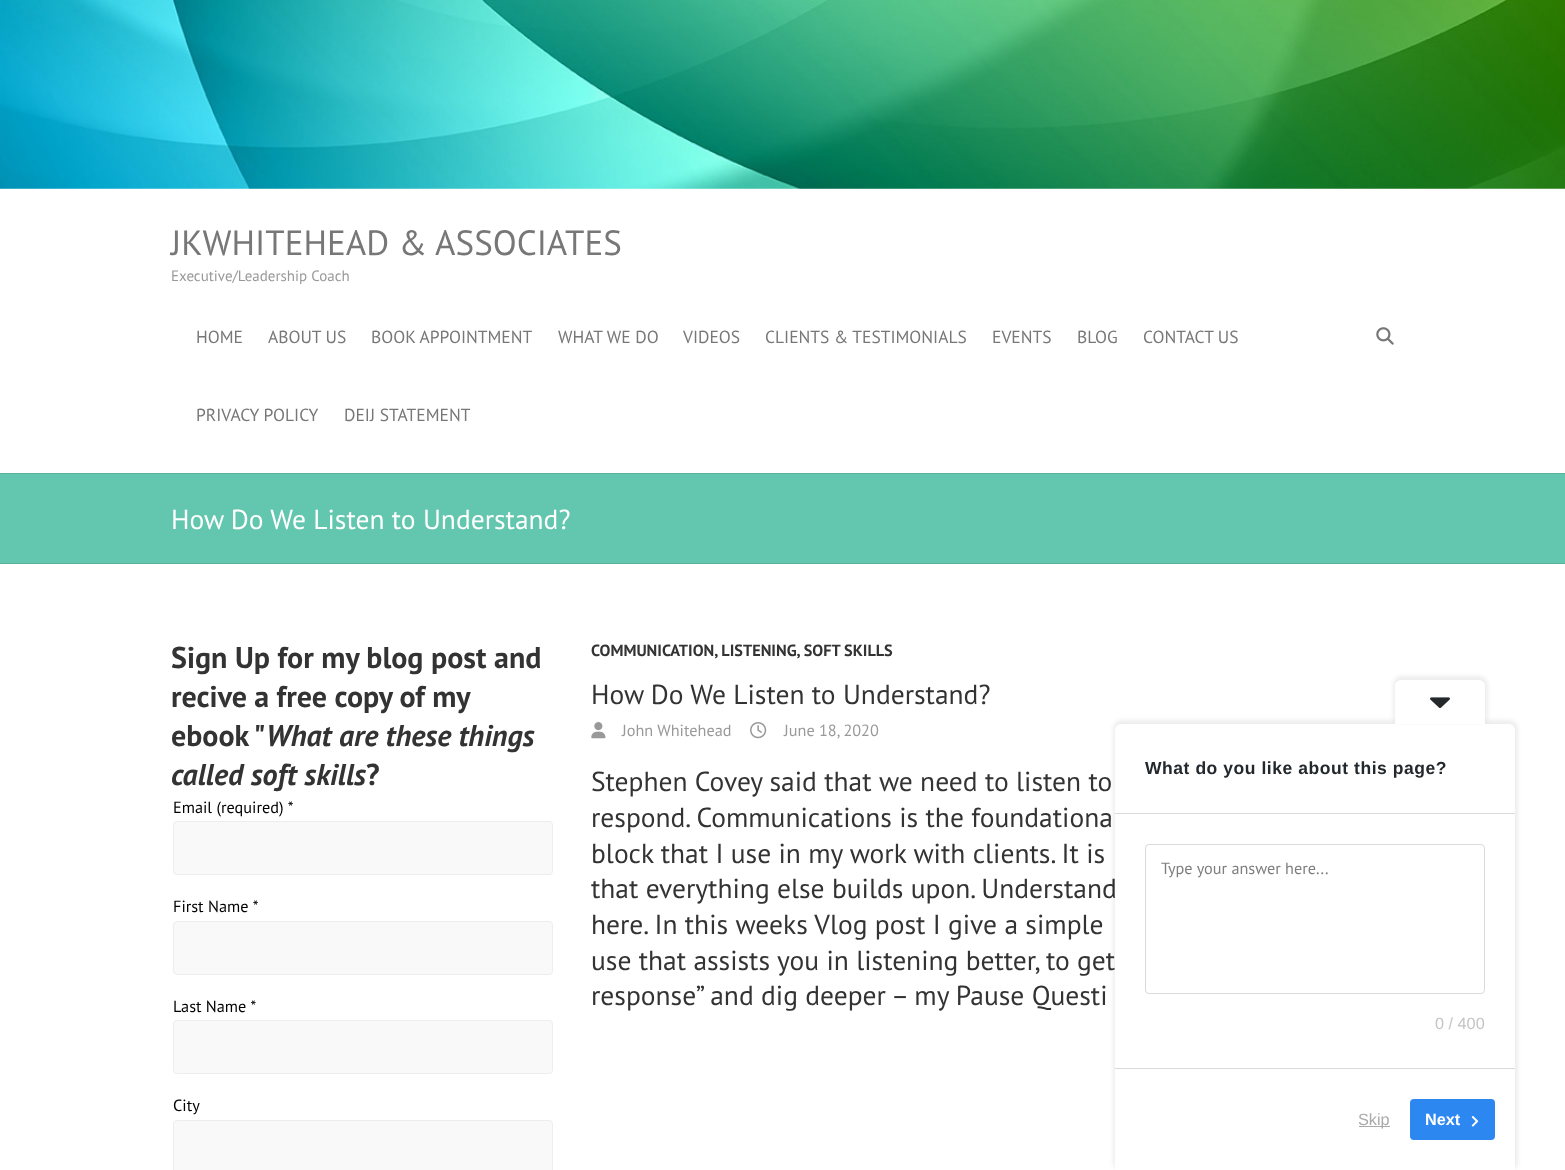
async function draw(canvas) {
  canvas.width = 1565
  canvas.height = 1170
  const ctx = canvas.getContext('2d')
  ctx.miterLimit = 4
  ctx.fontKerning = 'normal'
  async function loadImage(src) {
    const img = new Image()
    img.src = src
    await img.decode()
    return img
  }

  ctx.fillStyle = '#fff'
  ctx.fillRect(0, 0, 1565, 1170)
  ctx.drawImage(await loadImage('image0.png'), 0, 0, 1565, 189)
  ctx.font = '35px PT Sans'
  ctx.fillStyle = '#777'
  ctx.fillText('JKWHITEHEAD & ASSOCIATES', 171, 255)
  ctx.font = '15px PT Sans'
  ctx.fillStyle = '#999'
  ctx.fillText('Executive/Leadership Coach', 171, 281)
  ctx.font = '17.5px PT Sans'
  ctx.fillStyle = '#777'
  ctx.fillText('HOME', 196, 343)
  ctx.fillText('ABOUT US', 268, 343)
  ctx.fillText('BOOK APPOINTMENT', 371, 343)
  ctx.fillText('WHAT WE DO', 558, 343)
  ctx.fillText('VIDEOS', 683, 343)
  ctx.fillText('CLIENTS & TESTIMONIALS', 765, 343)
  ctx.fillText('EVENTS', 992, 343)
  ctx.fillText('BLOG', 1077, 343)
  ctx.fillText('CONTACT US', 1143, 343)
  ctx.fillText('PRIVACY POLICY', 196, 421)
  ctx.fillText('DEIJ STATEMENT', 344, 421)
  ctx.drawImage(await loadImage('image1.png'), 1376, 327, 18, 18)
  ctx.fillStyle = '#63c6ae'
  ctx.fillRect(0, 474, 1565, 89)
  ctx.fillStyle = '#59b29d'
  ctx.fillRect(0, 473, 1565, 1)
  ctx.fillRect(0, 563, 1565, 1)
  ctx.font = '27.5px PT Sans'
  ctx.fillStyle = '#fff'
  ctx.fillText('How Do We Listen to Understand?', 171, 529)
  ctx.font = 'bold 30px PT Sans'
  ctx.fillStyle = '#333'
  ctx.fillText('Sign Up for my blog post and', 171, 668)
  ctx.wordSpacing = '-0.25px'
  ctx.fillText('recive a free copy of my', 171, 707)
  ctx.wordSpacing = '0px'
  ctx.fillText('ebook "', 171, 746)
  ctx.font = 'italic bold 30px PT Sans'
  ctx.fillText('What are these things', 266, 746)
  ctx.fillText('called soft skills', 171, 785)
  ctx.font = 'bold 30px PT Sans'
  ctx.fillText('?', 366, 785)
  ctx.font = '16.25px PT Sans'
  ctx.fillStyle = '#000'
  ctx.fillText('Email (required) *', 173, 813)
  ctx.fillStyle = '#f9f9f9'
  ctx.beginPath()
  ctx.roundRect(173.5, 821.5, 379, 53, 3.5)
  ctx.fill()
  ctx.strokeStyle = '#ededed'
  ctx.stroke()
  ctx.fillStyle = '#000'
  ctx.fillText('First Name *', 173, 912)
  ctx.fillStyle = '#f9f9f9'
  ctx.beginPath()
  ctx.roundRect(173.5, 921.5, 379, 53, 3.5)
  ctx.fill()
  ctx.stroke()
  ctx.fillStyle = '#000'
  ctx.fillText('Last Name *', 173, 1012)
  ctx.fillStyle = '#f9f9f9'
  ctx.beginPath()
  ctx.roundRect(173.5, 1020.5, 379, 53, 3.5)
  ctx.fill()
  ctx.stroke()
  ctx.fillStyle = '#000'
  ctx.fillText('City', 173, 1111)
  ctx.fillStyle = '#f9f9f9'
  ctx.beginPath()
  ctx.roundRect(173.5, 1120.5, 379, 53, 3.5)
  ctx.fill()
  ctx.stroke()
  ctx.font = 'bold 16.25px PT Sans'
  ctx.fillStyle = '#333'
  ctx.fillText('COMMUNICATION, LISTENING, SOFT SKILLS', 591, 656)
  ctx.font = '27.5px PT Sans'
  ctx.fillText('How Do We Listen to Understand?', 591, 704)
  ctx.drawImage(await loadImage('image2.png'), 591, 722, 15, 17)
  ctx.font = '16.25px PT Sans'
  ctx.fillStyle = '#999'
  ctx.fillText('John Whitehead', 622, 736)
  ctx.drawImage(await loadImage('image3.png'), 750, 722, 17, 17)
  ctx.fillText('June 18, 2020', 784, 736)
  ctx.font = '27.5px PT Sans'
  ctx.fillStyle = '#333'
  ctx.fillText('Stephen Covey said that we need to listen to', 591, 791)
  ctx.fillText('respond. Communications is the foundationa', 591, 827)
  ctx.fillText('block that I use in my work with clients. It is', 591, 863)
  ctx.fillText('that everything else builds upon. Understand', 591, 898)
  ctx.fillText('here. In this weeks Vlog post I give a simple', 591, 934)
  ctx.fillText('use that assists you in listening better, to get', 591, 970)
  ctx.fillText('response” and dig deeper – my Pause Questi', 591, 1005)
  ctx.fillStyle = '#00000012'
  ctx.filter = 'blur(2px)'
  ctx.beginPath()
  ctx.roundRect(1113, 720, 405, 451, 9)
  ctx.fill()
  ctx.filter = 'none'
  ctx.fillStyle = '#fff'
  ctx.beginPath()
  ctx.roundRect(1115, 724, 400, 446, [6, 6, 0, 0])
  ctx.fill()
  ctx.save()
  ctx.beginPath()
  ctx.moveTo(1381.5, 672)
  ctx.lineTo(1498.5, 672)
  ctx.lineTo(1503, 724.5)
  ctx.lineTo(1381.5, 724.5)
  ctx.closePath()
  ctx.clip()
  ctx.fillStyle = '#00000012'
  ctx.filter = 'blur(2px)'
  ctx.beginPath()
  ctx.roundRect(1393, 676, 95, 49, 9)
  ctx.fill()
  ctx.filter = 'none'
  ctx.restore()
  ctx.beginPath()
  ctx.roundRect(1395, 680, 90, 44, [6, 6, 0, 0])
  ctx.fill()
  ctx.drawImage(await loadImage('image4.png'), 1430, 697, 20, 11)
  ctx.letterSpacing = '0.55px'
  ctx.font = 'bold 17.5px Liberation Sans'
  ctx.fillStyle = '#23282d'
  ctx.fillText('What do you like about this page?', 1145, 774)
  ctx.fillStyle = '#d9d9d9'
  ctx.fillRect(1115, 813, 400, 1)
  ctx.fillRect(1115, 1068, 400, 1)
  ctx.beginPath()
  ctx.roundRect(1145.5, 844.5, 339, 149, 3.5)
  ctx.strokeStyle = '#dadada'
  ctx.stroke()
  ctx.letterSpacing = '0px'
  ctx.font = '16.25px PT Sans'
  ctx.fillStyle = '#7e7e7e'
  ctx.fillText('Type your answer here...', 1161, 874)
  ctx.font = '16.25px Liberation Sans'
  ctx.fillStyle = '#c4c4c4'
  ctx.fillText('0 / 400', 1435, 1029)
  ctx.fillStyle = '#aaa'
  ctx.fillRect(1359, 1126, 31, 1)
  ctx.fillText('Skip', 1358, 1125)
  ctx.fillStyle = '#2d87f1'
  ctx.beginPath()
  ctx.roundRect(1410, 1099, 85, 41, 4)
  ctx.fill()
  ctx.font = 'bold 16.25px Liberation Sans'
  ctx.fillStyle = '#fff'
  ctx.fillText('Next', 1425, 1125)
  ctx.drawImage(await loadImage('image5.png'), 1471, 1116, 8, 11)
}

draw(document.querySelector('canvas'))
